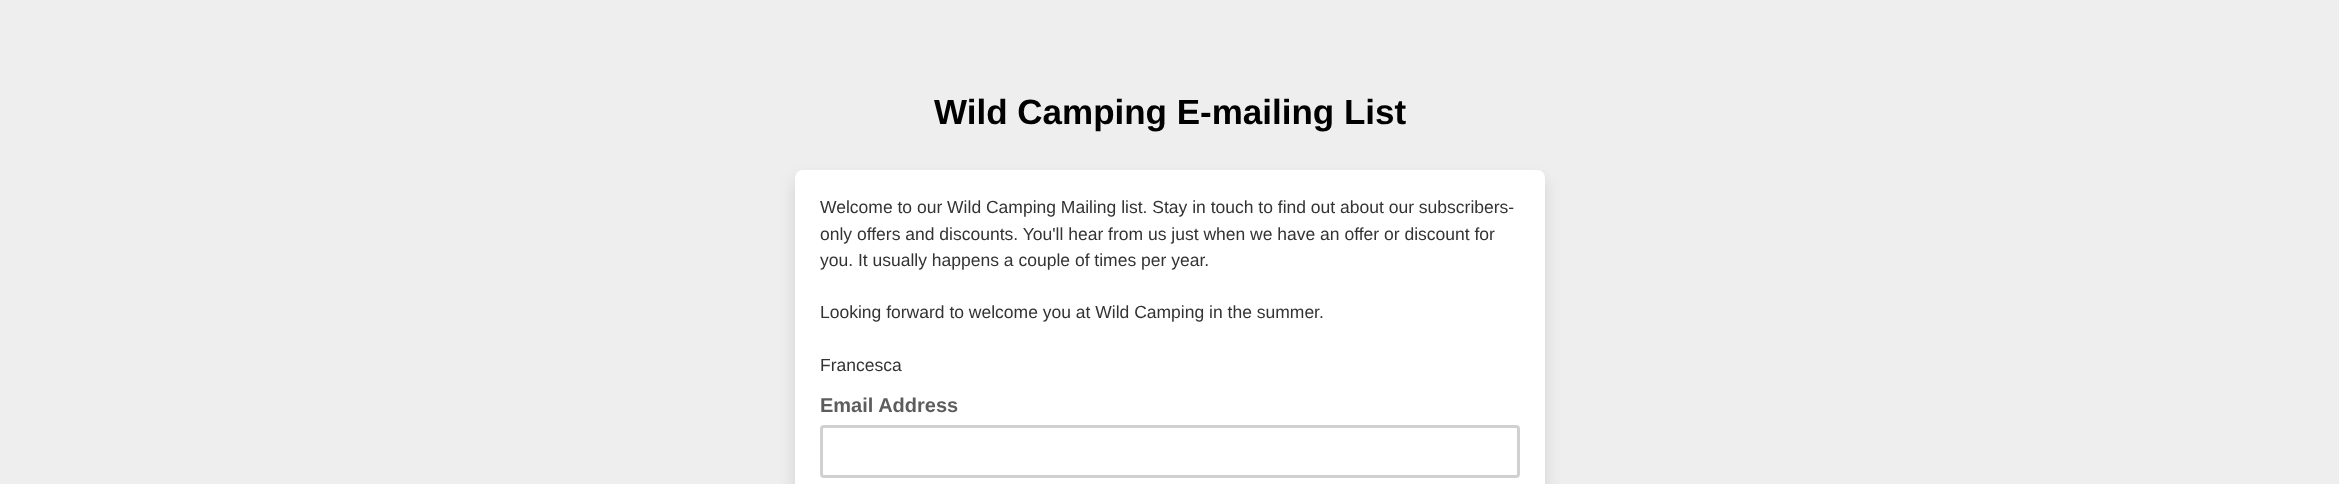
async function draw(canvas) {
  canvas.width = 2339
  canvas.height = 484
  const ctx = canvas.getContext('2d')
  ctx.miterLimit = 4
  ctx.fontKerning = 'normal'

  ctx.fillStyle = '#eee'
  ctx.fillRect(0, 0, 2339, 484)
  ctx.font = 'bold 35px Liberation Sans'
  ctx.fillStyle = '#000'
  ctx.fillText('Wild Camping E-mailing List', 934, 124)
  ctx.fillStyle = '#0d12161f'
  ctx.filter = 'blur(7.5px)'
  ctx.beginPath()
  ctx.roundRect(795, 178, 750, 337, 8)
  ctx.fill()
  ctx.filter = 'none'
  ctx.fillStyle = '#fff'
  ctx.beginPath()
  ctx.roundRect(795, 170, 750, 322, 8)
  ctx.fill()
  ctx.font = '17.5px Liberation Sans'
  ctx.fillStyle = '#333'
  ctx.fillText('Welcome to our Wild Camping Mailing list. Stay in touch to find out about our subscribers-', 820, 213)
  ctx.fillText('only offers and discounts. You\'ll hear from us just when we have an offer or discount for', 820, 240)
  ctx.fillText('you. It usually happens a couple of times per year.', 820, 266)
  ctx.fillText('Looking forward to welcome you at Wild Camping in the summer.', 820, 318)
  ctx.fillText('Francesca', 820, 371)
  ctx.font = 'bold 20px Liberation Sans'
  ctx.fillStyle = '#5d5d5d'
  ctx.fillText('Email Address', 820, 412)
  ctx.beginPath()
  ctx.roundRect(821.5, 426.5, 697, 50, 2.5)
  ctx.strokeStyle = '#d0d0d0'
  ctx.lineWidth = 3
  ctx.stroke()
}

draw(document.querySelector('canvas'))
